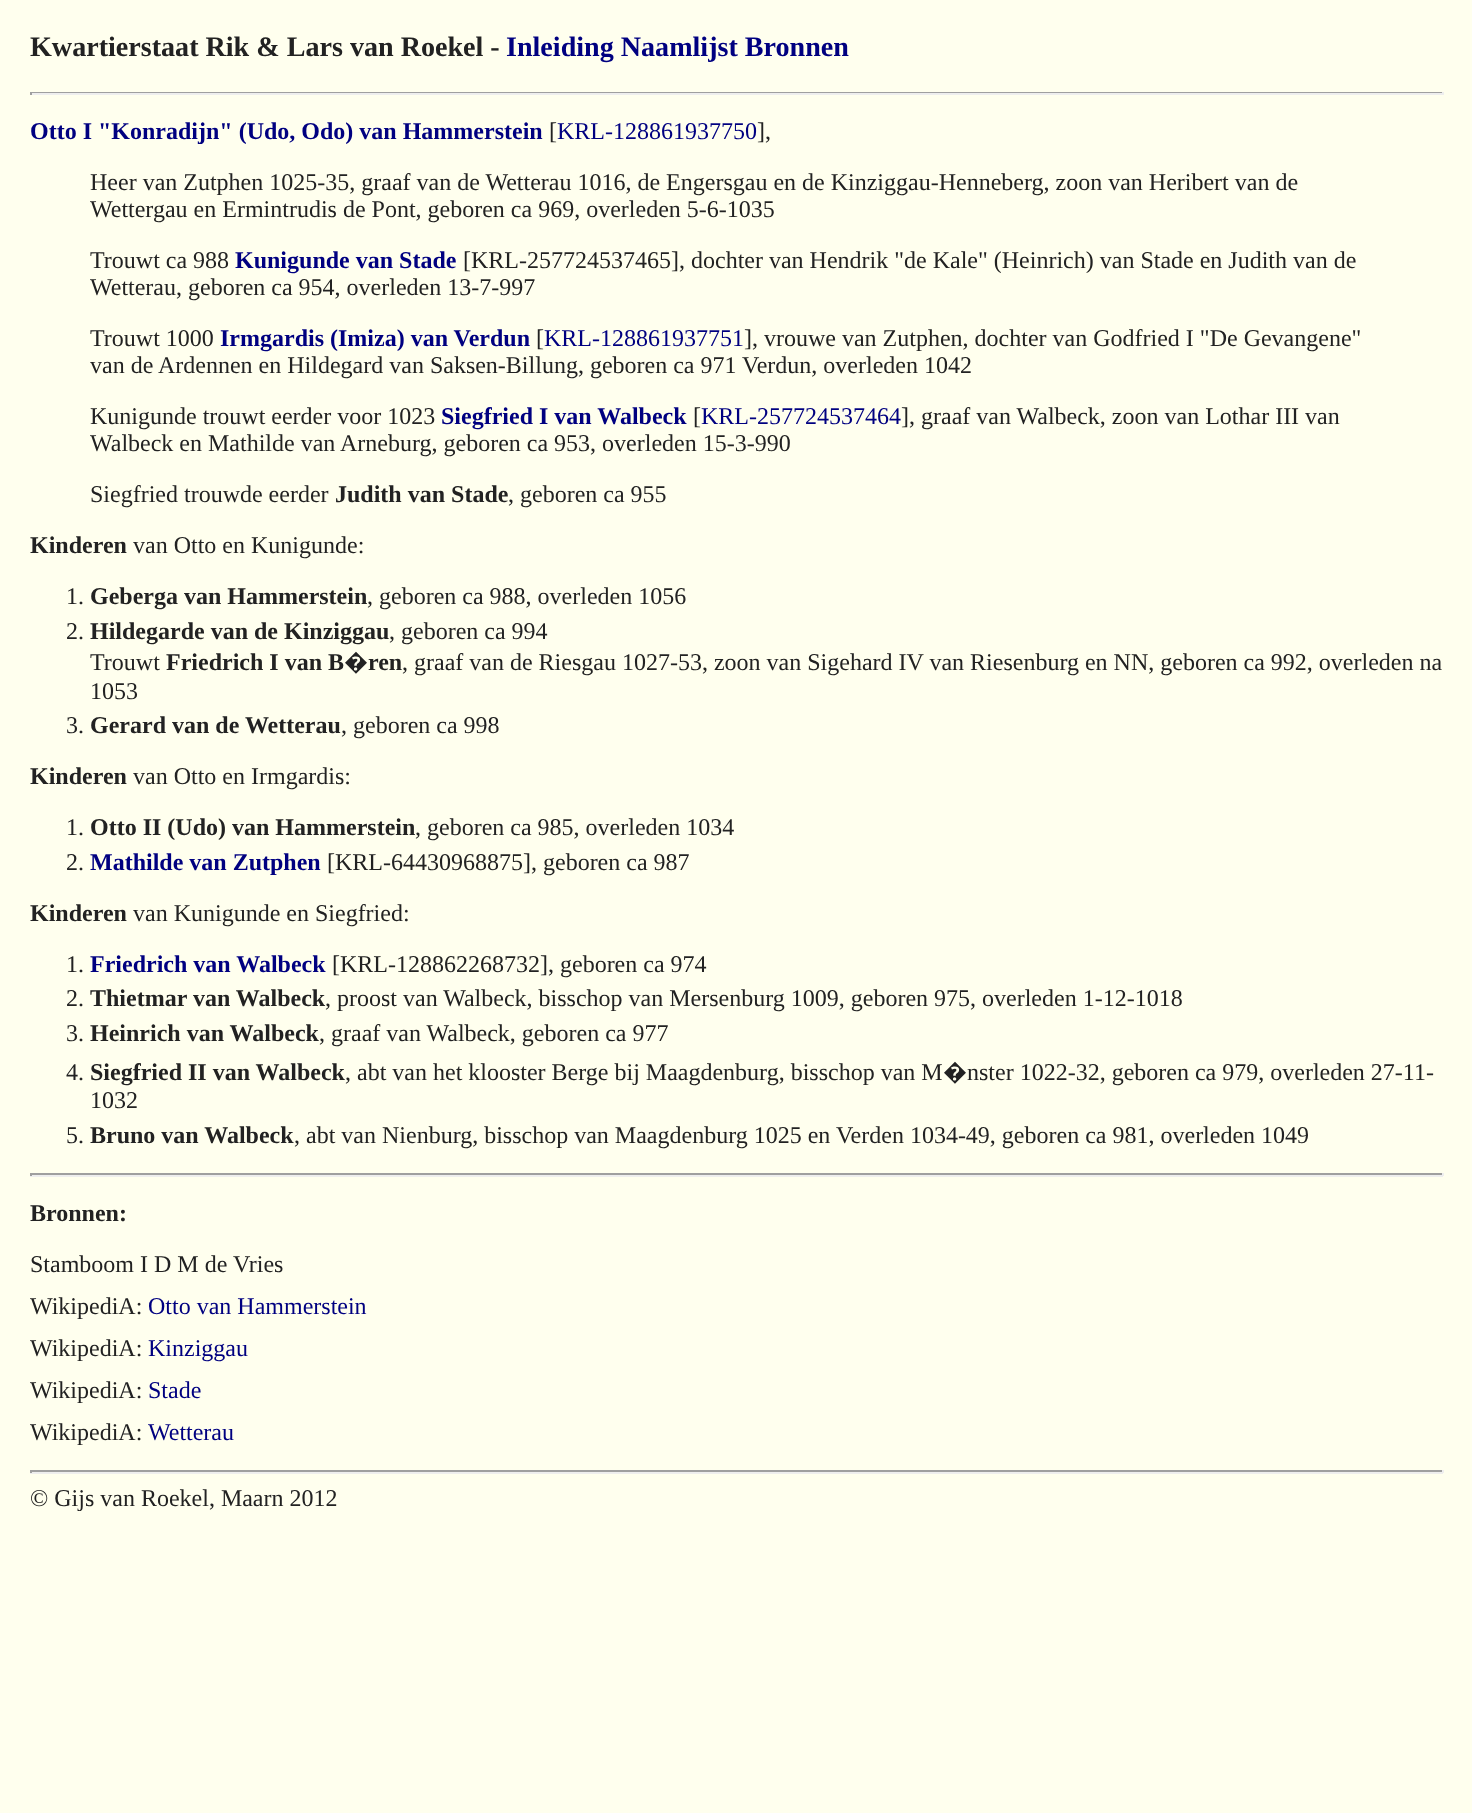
async function draw(canvas) {
  canvas.width = 1472
  canvas.height = 1813
  const ctx = canvas.getContext('2d')
  ctx.miterLimit = 4
  ctx.fontKerning = 'normal'

  ctx.fillStyle = '#ffe'
  ctx.fillRect(0, 0, 1472, 1813)
  ctx.font = 'bold 28.1px Liberation Serif'
  ctx.fillStyle = '#222'
  ctx.fillText('Kwartierstaat Rik & Lars van Roekel -', 30, 56)
  ctx.fillStyle = '#000080'
  ctx.fillText('Inleiding Naamlijst Bronnen', 506, 56)
  ctx.fillStyle = '#9f9f9f'
  ctx.fillRect(30, 92, 1413, 1)
  ctx.fillStyle = '#eee'
  ctx.fillRect(1442, 92, 2, 3)
  ctx.fillRect(30, 93, 1413, 2)
  ctx.fillStyle = '#9f9f9f'
  ctx.fillRect(30, 92, 2, 3)
  ctx.font = 'bold 24px Liberation Serif'
  ctx.fillStyle = '#000080'
  ctx.fillText('Otto I "Konradijn" (Udo, Odo) van Hammerstein', 30, 139)
  ctx.font = '24px Liberation Serif'
  ctx.fillStyle = '#222'
  ctx.fillText('[', 549, 139)
  ctx.fillStyle = '#000080'
  ctx.fillText('KRL-128861937750', 557, 139)
  ctx.fillStyle = '#222'
  ctx.fillText('],', 757, 139)
  ctx.fillText('Heer van Zutphen 1025-35, graaf van de Wetterau 1016, de Engersgau en de Kinziggau-Henneberg, zoon van Heribert van de', 90, 190)
  ctx.fillText('Wettergau en Ermintrudis de Pont, geboren ca 969, overleden 5-6-1035', 90, 217)
  ctx.fillText('Trouwt ca 988', 90, 268)
  ctx.font = 'bold 24px Liberation Serif'
  ctx.fillStyle = '#000080'
  ctx.fillText('Kunigunde van Stade', 235, 268)
  ctx.font = '24px Liberation Serif'
  ctx.fillStyle = '#222'
  ctx.fillText('[KRL-257724537465], dochter van Hendrik "de Kale" (Heinrich) van Stade en Judith van de', 463, 268)
  ctx.fillText('Wetterau, geboren ca 954, overleden 13-7-997', 90, 295)
  ctx.fillText('Trouwt 1000', 90, 346)
  ctx.font = 'bold 24px Liberation Serif'
  ctx.fillStyle = '#000080'
  ctx.fillText('Irmgardis (Imiza) van Verdun', 220, 346)
  ctx.font = '24px Liberation Serif'
  ctx.fillStyle = '#222'
  ctx.fillText('[', 536, 346)
  ctx.fillStyle = '#000080'
  ctx.fillText('KRL-128861937751', 544, 346)
  ctx.fillStyle = '#222'
  ctx.fillText('], vrouwe van Zutphen, dochter van Godfried I "De Gevangene"', 744, 346)
  ctx.fillText('van de Ardennen en Hildegard van Saksen-Billung, geboren ca 971 Verdun, overleden 1042', 90, 373)
  ctx.fillText('Kunigunde trouwt eerder voor 1023', 90, 424)
  ctx.font = 'bold 24px Liberation Serif'
  ctx.fillStyle = '#000080'
  ctx.fillText('Siegfried I van Walbeck', 441, 424)
  ctx.font = '24px Liberation Serif'
  ctx.fillStyle = '#222'
  ctx.fillText('[', 693, 424)
  ctx.fillStyle = '#000080'
  ctx.fillText('KRL-257724537464', 701, 424)
  ctx.fillStyle = '#222'
  ctx.fillText('], graaf van Walbeck, zoon van Lothar III van', 901, 424)
  ctx.fillText('Walbeck en Mathilde van Arneburg, geboren ca 953, overleden 15-3-990', 90, 451)
  ctx.fillText('Siegfried trouwde eerder', 90, 502)
  ctx.font = 'bold 24px Liberation Serif'
  ctx.fillText('Judith van Stade', 335, 502)
  ctx.font = '24px Liberation Serif'
  ctx.fillText(', geboren ca 955', 508, 502)
  ctx.font = 'bold 24px Liberation Serif'
  ctx.fillText('Kinderen', 30, 553)
  ctx.font = '24px Liberation Serif'
  ctx.fillText('van Otto en Kunigunde:', 133, 553)
  ctx.fillText('1.', 66, 604)
  ctx.font = 'bold 24px Liberation Serif'
  ctx.fillText('Geberga van Hammerstein', 90, 604)
  ctx.font = '24px Liberation Serif'
  ctx.fillText(', geboren ca 988, overleden 1056', 367, 604)
  ctx.fillText('2.', 66, 639)
  ctx.font = 'bold 24px Liberation Serif'
  ctx.fillText('Hildegarde van de Kinziggau', 90, 639)
  ctx.font = '24px Liberation Serif'
  ctx.fillText(', geboren ca 994', 389, 639)
  ctx.fillText('Trouwt', 90, 670)
  ctx.font = 'bold 24px Liberation Serif'
  ctx.fillText('Friedrich I van B', 166, 670)
  ctx.font = 'bold 24px Noto Sans'
  ctx.fillText('�', 344, 670)
  ctx.font = 'bold 24px Liberation Serif'
  ctx.fillText('ren', 368, 670)
  ctx.font = '24px Liberation Serif'
  ctx.fillText(', graaf van de Riesgau 1027-53, zoon van Sigehard IV van Riesenburg en NN, geboren ca 992, overleden na', 402, 670)
  ctx.fillText('1053', 90, 699)
  ctx.fillText('3.', 66, 733)
  ctx.font = 'bold 24px Liberation Serif'
  ctx.fillText('Gerard van de Wetterau', 90, 733)
  ctx.font = '24px Liberation Serif'
  ctx.fillText(', geboren ca 998', 341, 733)
  ctx.font = 'bold 24px Liberation Serif'
  ctx.fillText('Kinderen', 30, 784)
  ctx.font = '24px Liberation Serif'
  ctx.fillText('van Otto en Irmgardis:', 133, 784)
  ctx.fillText('1.', 66, 835)
  ctx.font = 'bold 24px Liberation Serif'
  ctx.fillText('Otto II (Udo) van Hammerstein', 90, 835)
  ctx.font = '24px Liberation Serif'
  ctx.fillText(', geboren ca 985, overleden 1034', 415, 835)
  ctx.fillText('2.', 66, 870)
  ctx.font = 'bold 24px Liberation Serif'
  ctx.fillStyle = '#000080'
  ctx.fillText('Mathilde van Zutphen', 90, 870)
  ctx.font = '24px Liberation Serif'
  ctx.fillStyle = '#222'
  ctx.fillText('[KRL-64430968875], geboren ca 987', 327, 870)
  ctx.font = 'bold 24px Liberation Serif'
  ctx.fillText('Kinderen', 30, 921)
  ctx.font = '24px Liberation Serif'
  ctx.fillText('van Kunigunde en Siegfried:', 133, 921)
  ctx.fillText('1.', 66, 972)
  ctx.font = 'bold 24px Liberation Serif'
  ctx.fillStyle = '#000080'
  ctx.fillText('Friedrich van Walbeck', 90, 972)
  ctx.font = '24px Liberation Serif'
  ctx.fillStyle = '#222'
  ctx.fillText('[KRL-128862268732], geboren ca 974', 332, 972)
  ctx.fillText('2.', 66, 1006)
  ctx.font = 'bold 24px Liberation Serif'
  ctx.fillText('Thietmar van Walbeck', 90, 1006)
  ctx.font = '24px Liberation Serif'
  ctx.fillText(', proost van Walbeck, bisschop van Mersenburg 1009, geboren 975, overleden 1-12-1018', 325, 1006)
  ctx.fillText('3.', 66, 1041)
  ctx.font = 'bold 24px Liberation Serif'
  ctx.fillText('Heinrich van Walbeck', 90, 1041)
  ctx.font = '24px Liberation Serif'
  ctx.fillText(', graaf van Walbeck, geboren ca 977', 319, 1041)
  ctx.fillText('4.', 66, 1080)
  ctx.font = 'bold 24px Liberation Serif'
  ctx.fillText('Siegfried II van Walbeck', 90, 1080)
  ctx.font = '24px Liberation Serif'
  ctx.fillText(', abt van het klooster Berge bij Maagdenburg, bisschop van M', 345, 1080)
  ctx.font = '24px Noto Sans'
  ctx.fillText('�', 943, 1080)
  ctx.font = '24px Liberation Serif'
  ctx.fillText('nster 1022-32, geboren ca 979, overleden 27-11-', 967, 1080)
  ctx.fillText('1032', 90, 1108)
  ctx.fillText('5.', 66, 1143)
  ctx.font = 'bold 24px Liberation Serif'
  ctx.fillText('Bruno van Walbeck', 90, 1143)
  ctx.font = '24px Liberation Serif'
  ctx.fillText(', abt van Nienburg, bisschop van Maagdenburg 1025 en Verden 1034-49, geboren ca 981, overleden 1049', 294, 1143)
  ctx.fillStyle = '#9f9f9f'
  ctx.fillRect(30, 1173, 1413, 2)
  ctx.fillStyle = '#eee'
  ctx.fillRect(1442, 1173, 2, 3)
  ctx.fillRect(30, 1175, 1413, 2)
  ctx.fillStyle = '#9f9f9f'
  ctx.fillRect(30, 1173, 2, 3)
  ctx.font = 'bold 24px Liberation Serif'
  ctx.fillStyle = '#222'
  ctx.fillText('Bronnen:', 30, 1221)
  ctx.font = '24px Liberation Serif'
  ctx.fillText('Stamboom I D M de Vries', 30, 1272)
  ctx.fillText('WikipediA:', 30, 1314)
  ctx.fillStyle = '#000080'
  ctx.fillText('Otto van Hammerstein', 148, 1314)
  ctx.fillStyle = '#222'
  ctx.fillText('WikipediA:', 30, 1356)
  ctx.fillStyle = '#000080'
  ctx.fillText('Kinziggau', 148, 1356)
  ctx.fillStyle = '#222'
  ctx.fillText('WikipediA:', 30, 1398)
  ctx.fillStyle = '#000080'
  ctx.fillText('Stade', 148, 1398)
  ctx.fillStyle = '#222'
  ctx.fillText('WikipediA:', 30, 1440)
  ctx.fillStyle = '#000080'
  ctx.fillText('Wetterau', 148, 1440)
  ctx.fillStyle = '#9f9f9f'
  ctx.fillRect(30, 1470, 1413, 2)
  ctx.fillStyle = '#eee'
  ctx.fillRect(1442, 1470, 2, 3)
  ctx.fillRect(30, 1472, 1413, 2)
  ctx.fillStyle = '#9f9f9f'
  ctx.fillRect(30, 1470, 2, 3)
  ctx.fillStyle = '#222'
  ctx.fillText('© Gijs van Roekel, Maarn 2012', 30, 1506)
}

draw(document.querySelector('canvas'))
